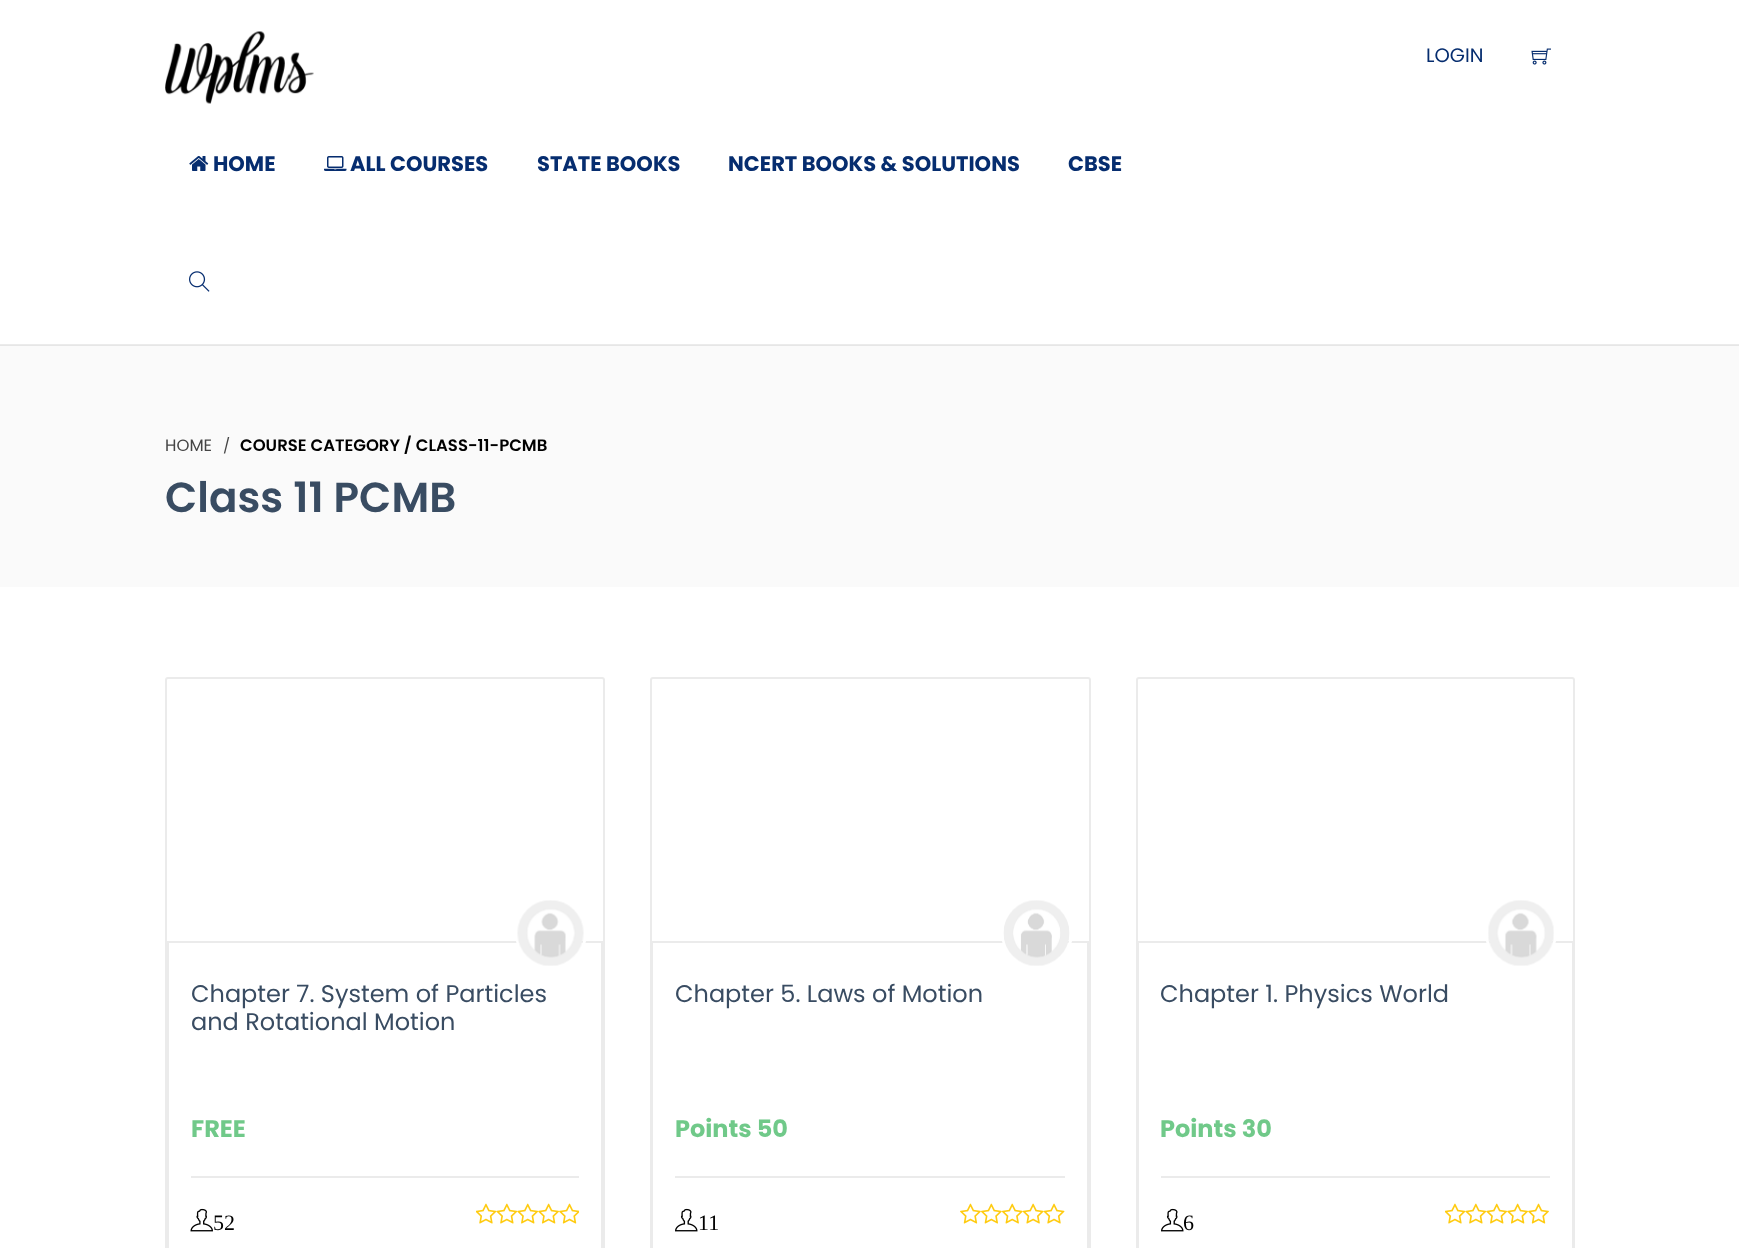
async function draw(canvas) {
  canvas.width = 1739
  canvas.height = 1248
  const ctx = canvas.getContext('2d')
  ctx.miterLimit = 4
  ctx.fontKerning = 'normal'
  async function loadImage(src) {
    const img = new Image()
    img.src = src
    await img.decode()
    return img
  }

  ctx.fillStyle = '#fff'
  ctx.fillRect(0, 0, 1739, 1248)
  ctx.fillStyle = '#ebebeb'
  ctx.fillRect(0, 344, 1739, 1)
  ctx.font = '19.5px Poppins'
  ctx.fillStyle = '#062d6f'
  ctx.fillText('LOGIN', 1426, 62)
  ctx.drawImage(await loadImage('image0.png'), 1531, 48, 20, 17)
  ctx.drawImage(await loadImage('image1.png'), 165, 31, 149, 73)
  ctx.drawImage(await loadImage('image2.png'), 189, 156, 20, 15)
  ctx.font = 'bold 21px Poppins'
  ctx.fillText('HOME', 213, 171)
  ctx.drawImage(await loadImage('image3.png'), 324, 156, 23, 15)
  ctx.fillText('ALL COURSES', 350, 171)
  ctx.fillText('STATE BOOKS', 537, 171)
  ctx.fillText('NCERT BOOKS & SOLUTIONS', 728, 171)
  ctx.fillText('CBSE', 1068, 171)
  ctx.drawImage(await loadImage('image4.png'), 189, 271, 21, 21)
  ctx.fillStyle = '#fafafa'
  ctx.fillRect(0, 346, 1739, 241)
  ctx.fillStyle = '#e6e6e6'
  ctx.fillRect(0, 345, 1739, 1)
  ctx.font = '16.5px Poppins'
  ctx.fillStyle = '#444'
  ctx.fillText('HOME', 165, 451)
  ctx.font = '15px Poppins'
  ctx.fillText('/', 223, 451)
  ctx.font = '600 16.5px Poppins'
  ctx.fillStyle = '#000'
  ctx.fillText('COURSE CATEGORY / CLASS-11-PCMB', 240, 451)
  ctx.font = '600 42px Poppins'
  ctx.fillStyle = '#394c62'
  ctx.fillText('Class 11 PCMB', 165, 512)
  ctx.beginPath()
  ctx.roundRect(166, 678, 438, 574, 2)
  ctx.strokeStyle = '#ebebeb'
  ctx.lineWidth = 2
  ctx.stroke()
  ctx.strokeRect(168, 942, 434, 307)
  ctx.beginPath()
  ctx.arc(551, 933, 34.5, 0, 2 * Math.PI)
  ctx.strokeStyle = '#fff'
  ctx.lineWidth = 3
  ctx.stroke()
  ctx.drawImage(await loadImage('image5.png'), 517, 900, 67, 66)
  ctx.font = '24px Poppins'
  ctx.fillText('Chapter 7. System of Particles', 191, 1002)
  ctx.fillText('and Rotational Motion', 191, 1030)
  ctx.font = 'bold 24px Poppins'
  ctx.fillStyle = '#70c989'
  ctx.fillText('FREE', 191, 1137)
  ctx.fillStyle = '#ebebeb'
  ctx.fillRect(191, 1176, 388, 2)
  ctx.drawImage(await loadImage('image6.png'), 190, 1208, 23, 24)
  ctx.font = '22px Liberation Serif'
  ctx.fillStyle = '#000'
  ctx.fillText('52', 213, 1230)
  ctx.drawImage(await loadImage('image7.png'), 476, 1203, 103, 21)
  ctx.beginPath()
  ctx.roundRect(651, 678, 439, 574, 2)
  ctx.strokeStyle = '#ebebeb'
  ctx.lineWidth = 2
  ctx.stroke()
  ctx.strokeRect(652, 942, 436, 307)
  ctx.beginPath()
  ctx.arc(1037, 933, 34.5, 0, 2 * Math.PI)
  ctx.strokeStyle = '#fff'
  ctx.lineWidth = 3
  ctx.stroke()
  ctx.drawImage(await loadImage('image8.png'), 1003, 900, 67, 66)
  ctx.font = '24px Poppins'
  ctx.fillStyle = '#394c62'
  ctx.fillText('Chapter 5. Laws of Motion', 675, 1002)
  ctx.font = 'bold 24px Poppins'
  ctx.fillStyle = '#70c989'
  ctx.fillText('Points 50', 675, 1137)
  ctx.fillStyle = '#ebebeb'
  ctx.fillRect(675, 1176, 390, 2)
  ctx.drawImage(await loadImage('image9.png'), 675, 1208, 23, 24)
  ctx.font = '22px Liberation Serif'
  ctx.fillStyle = '#000'
  ctx.fillText('11', 698, 1230)
  ctx.drawImage(await loadImage('image10.png'), 960, 1203, 105, 21)
  ctx.beginPath()
  ctx.roundRect(1137, 678, 437, 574, 2)
  ctx.strokeStyle = '#ebebeb'
  ctx.lineWidth = 2
  ctx.stroke()
  ctx.strokeRect(1138, 942, 435, 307)
  ctx.beginPath()
  ctx.arc(1521, 933, 34.5, 0, 2 * Math.PI)
  ctx.strokeStyle = '#fff'
  ctx.lineWidth = 3
  ctx.stroke()
  ctx.drawImage(await loadImage('image11.png'), 1488, 900, 66, 66)
  ctx.font = '24px Poppins'
  ctx.fillStyle = '#394c62'
  ctx.fillText('Chapter 1. Physics World', 1160, 1002)
  ctx.font = 'bold 24px Poppins'
  ctx.fillStyle = '#70c989'
  ctx.fillText('Points 30', 1160, 1137)
  ctx.fillStyle = '#ebebeb'
  ctx.fillRect(1161, 1176, 389, 2)
  ctx.drawImage(await loadImage('image9.png'), 1161, 1208, 23, 24)
  ctx.font = '22px Liberation Serif'
  ctx.fillStyle = '#000'
  ctx.fillText('6', 1183, 1230)
  ctx.drawImage(await loadImage('image12.png'), 1445, 1203, 104, 21)
}

draw(document.querySelector('canvas'))
